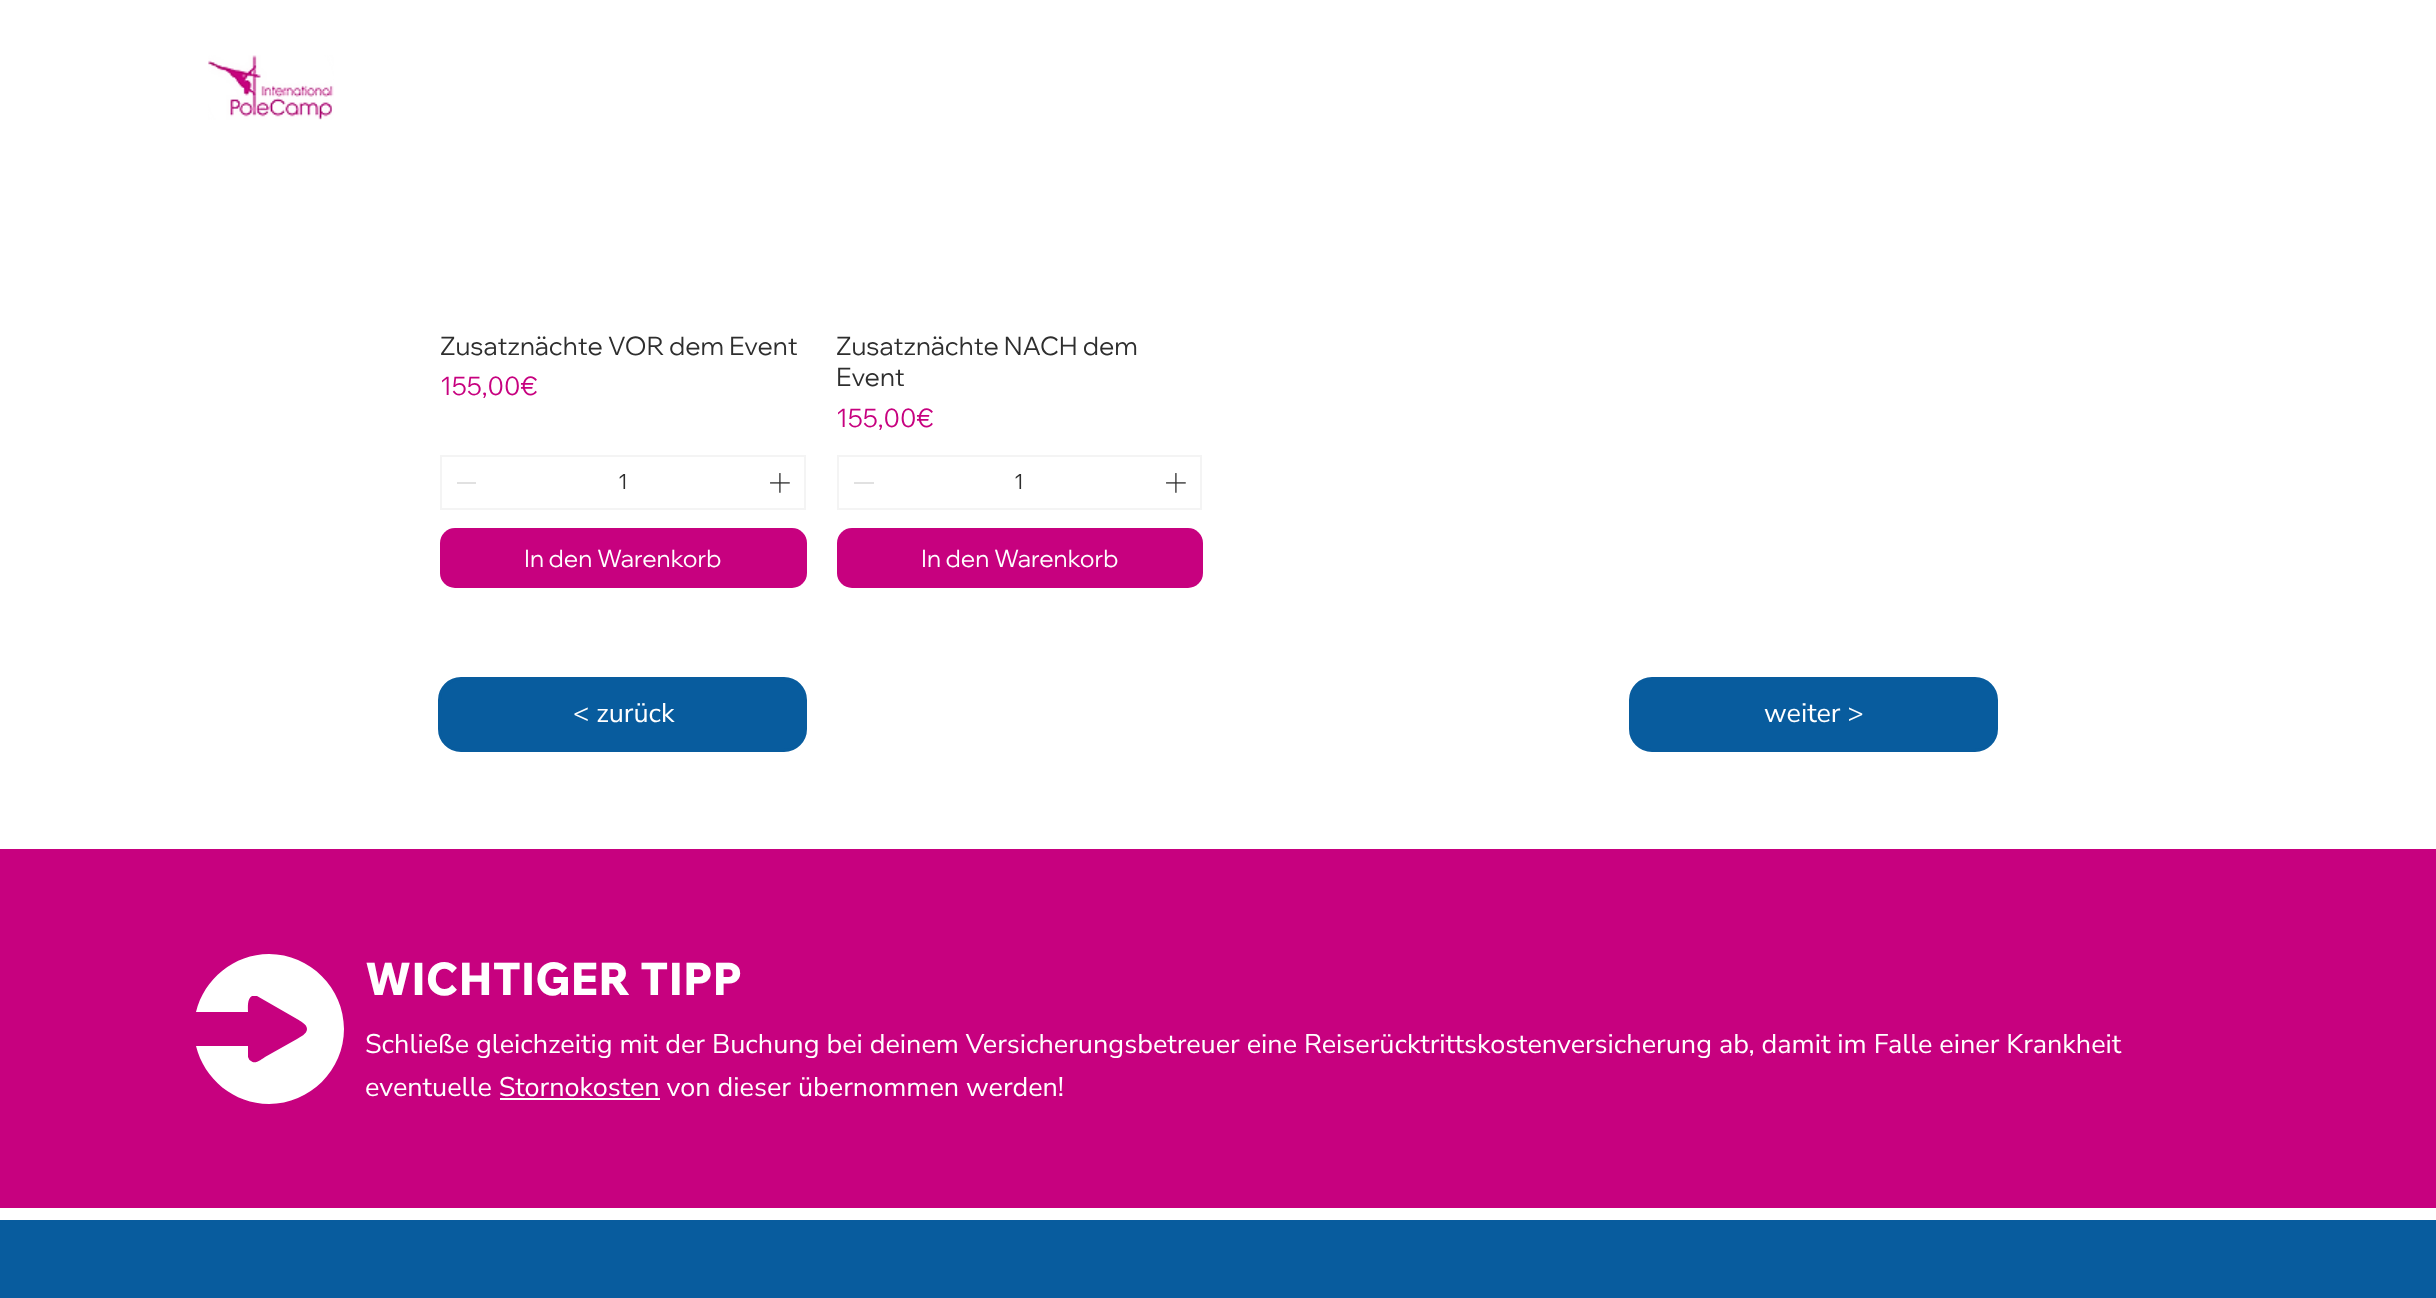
async function draw(canvas) {
  canvas.width = 2436
  canvas.height = 1298
  const ctx = canvas.getContext('2d')
  ctx.miterLimit = 4
  ctx.fontKerning = 'normal'
  async function loadImage(src) {
    const img = new Image()
    img.src = src
    await img.decode()
    return img
  }

  ctx.fillStyle = '#fff'
  ctx.fillRect(0, 0, 2436, 1298)
  ctx.drawImage(await loadImage('image0.png'), 208, 55, 126, 65)
  ctx.font = '25.5px Wix Madefor Display'
  ctx.fillStyle = '#2e2e2e'
  ctx.fillText('Zusatznächte VOR dem Event', 440, 355)
  ctx.fillStyle = '#c7017f'
  ctx.fillText('155,00€', 440, 395)
  ctx.strokeStyle = '#f4f4f4'
  ctx.lineWidth = 2
  ctx.strokeRect(441, 456, 364, 53)
  ctx.fillStyle = '#e1e1e1'
  ctx.fillRect(457, 482, 19, 2)
  ctx.font = '21px Wix Madefor Display'
  ctx.fillStyle = '#2e2e2e'
  ctx.fillText('1', 618, 489)
  ctx.drawImage(await loadImage('image1.png'), 770, 473, 20, 20)
  ctx.fillStyle = '#c7017f'
  ctx.beginPath()
  ctx.roundRect(440, 528, 367, 60, 15)
  ctx.fill()
  ctx.font = '24px Wix Madefor Display'
  ctx.fillStyle = '#fff'
  ctx.fillText('In den Warenkorb', 524, 567)
  ctx.font = '25.5px Wix Madefor Display'
  ctx.fillStyle = '#2e2e2e'
  ctx.fillText('Zusatznächte NACH dem', 836, 355)
  ctx.fillText('Event', 836, 386)
  ctx.fillStyle = '#c7017f'
  ctx.fillText('155,00€', 836, 427)
  ctx.strokeRect(838, 456, 363, 53)
  ctx.fillStyle = '#e1e1e1'
  ctx.fillRect(854, 482, 20, 2)
  ctx.font = '21px Wix Madefor Display'
  ctx.fillStyle = '#2e2e2e'
  ctx.fillText('1', 1014, 489)
  ctx.drawImage(await loadImage('image1.png'), 1166, 473, 20, 20)
  ctx.fillStyle = '#c7017f'
  ctx.beginPath()
  ctx.roundRect(837, 528, 366, 60, 15)
  ctx.fill()
  ctx.font = '24px Wix Madefor Display'
  ctx.fillStyle = '#fff'
  ctx.fillText('In den Warenkorb', 921, 567)
  ctx.fillStyle = '#085c9e'
  ctx.beginPath()
  ctx.roundRect(439.5, 678.5, 366, 72, 21.5)
  ctx.fill()
  ctx.strokeStyle = '#085c9e'
  ctx.lineWidth = 3
  ctx.stroke()
  ctx.font = '27px Nunito Sans'
  ctx.fillStyle = '#fff'
  ctx.fillText('< zurück', 573, 722)
  ctx.fillStyle = '#085c9e'
  ctx.beginPath()
  ctx.roundRect(1630.5, 678.5, 366, 72, 21.5)
  ctx.fill()
  ctx.stroke()
  ctx.fillStyle = '#fff'
  ctx.fillText('weiter >', 1764, 722)
  ctx.fillStyle = '#c7017f'
  ctx.fillRect(0, 849, 2436, 359)
  ctx.fillStyle = '#fff'
  ctx.beginPath()
  ctx.moveTo(269, 954)
  ctx.bezierCurveTo(234, 954, 204, 979, 196, 1012)
  ctx.lineTo(248, 1012)
  ctx.bezierCurveTo(248, 1007, 247, 999, 252, 996)
  ctx.bezierCurveTo(254, 996, 255, 996, 257, 996)
  ctx.lineTo(297, 1019)
  ctx.bezierCurveTo(300, 1021, 307, 1024, 307, 1029)
  ctx.bezierCurveTo(307, 1034, 300, 1037, 297, 1039)
  ctx.lineTo(265, 1057)
  ctx.bezierCurveTo(262, 1059, 255, 1065, 251, 1061)
  ctx.bezierCurveTo(249, 1060, 249, 1059, 248, 1057)
  ctx.lineTo(248, 1046)
  ctx.lineTo(196, 1046)
  ctx.bezierCurveTo(204, 1079, 234, 1104, 269, 1104)
  ctx.bezierCurveTo(310, 1104, 344, 1070, 344, 1029)
  ctx.bezierCurveTo(344, 988, 310, 954, 269, 954)
  ctx.closePath()
  ctx.fill()
  ctx.font = '800 45px Wix Madefor Text'
  ctx.fillText('WICHTIGER TIPP', 365, 995)
  ctx.font = '27px Nunito Sans'
  ctx.fillText('Schließe gleichzeitig mit der Buchung bei deinem Versicherungsbetreuer eine Reiserücktrittskostenversicherung ab, damit im Falle einer Krankheit', 365, 1053)
  ctx.fillText('eventuelle Stornokosten von dieser übernommen werden!', 365, 1096)
  ctx.fillRect(500, 1098, 160, 2)
  ctx.fillStyle = '#085c9e'
  ctx.fillRect(0, 1220, 2436, 78)
}

draw(document.querySelector('canvas'))
